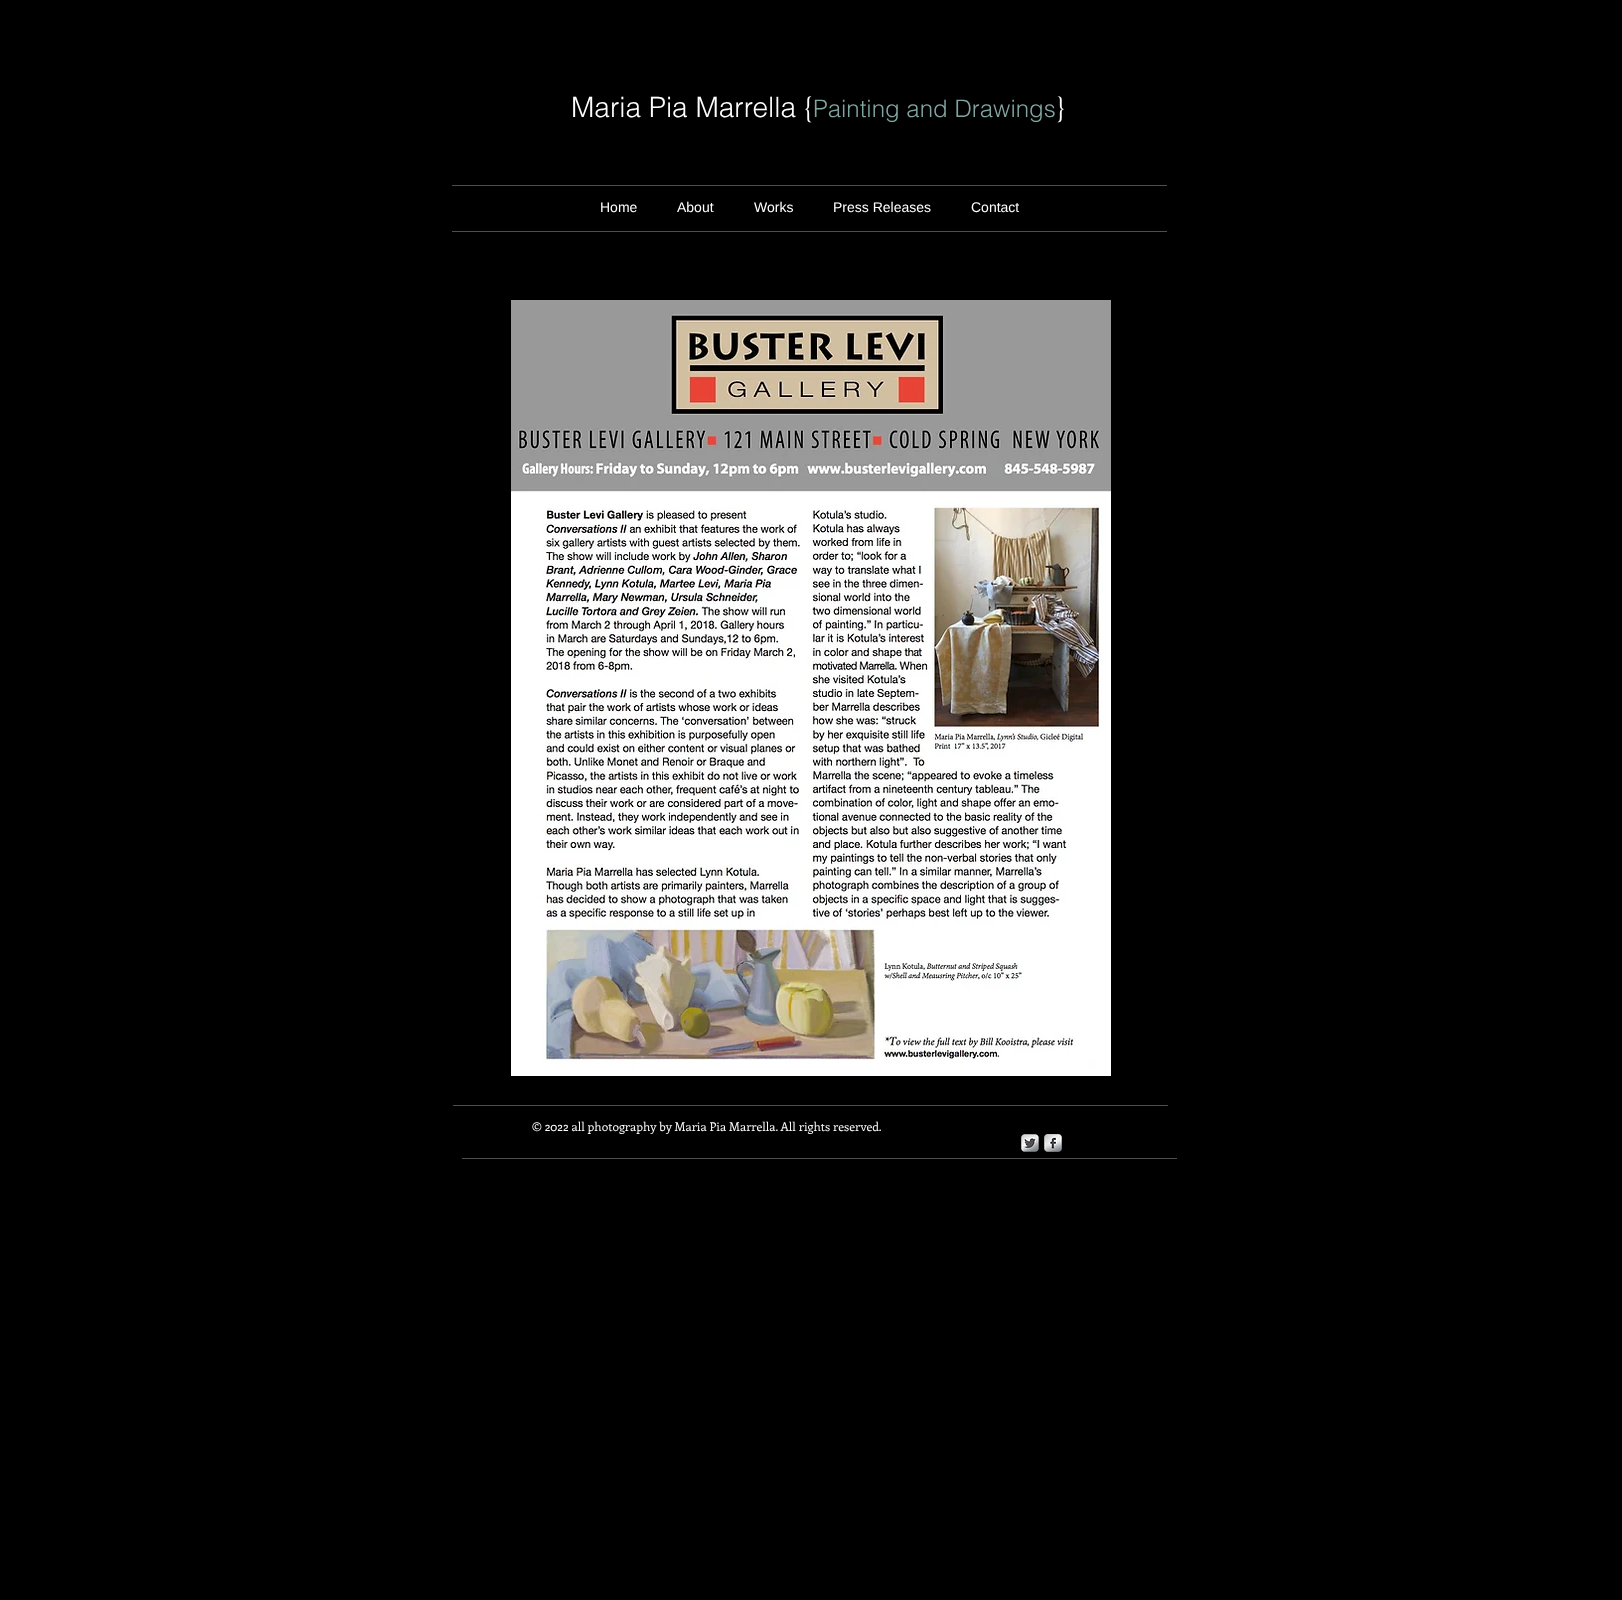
async function draw(canvas) {
  canvas.width = 1622
  canvas.height = 1600
  const ctx = canvas.getContext('2d')
  ctx.miterLimit = 4
  ctx.fontKerning = 'normal'
  async function loadImage(src) {
    const img = new Image()
    img.src = src
    await img.decode()
    return img
  }

  ctx.fillStyle = '#000'
  ctx.fillRect(0, 0, 1622, 1600)
  ctx.font = '300 28px helvetica'
  ctx.fillStyle = '#fff'
  ctx.fillText('Maria Pia Marrella {', 571, 117)
  ctx.font = '300 24px helvetica'
  ctx.fillStyle = '#81a59f'
  ctx.fillText('Painting and Drawings', 813, 117)
  ctx.font = '300 28px helvetica'
  ctx.fillStyle = '#fff'
  ctx.fillText('}', 1056, 117)
  ctx.fillStyle = '#4e4e4e'
  ctx.fillRect(452, 185, 715, 1)
  ctx.font = '14px Liberation Sans'
  ctx.fillStyle = '#fff'
  ctx.fillText('Home', 600, 212)
  ctx.fillText('About', 677, 212)
  ctx.fillText('Works', 754, 212)
  ctx.fillText('Press Releases', 833, 212)
  ctx.fillText('Contact', 971, 212)
  ctx.fillStyle = '#4e4e4e'
  ctx.fillRect(452, 231, 715, 1)
  ctx.drawImage(await loadImage('image0.png'), 511, 300, 600, 776)
  ctx.fillRect(453, 1105, 715, 1)
  ctx.font = '12px Enriqueta'
  ctx.fillStyle = '#fff'
  ctx.fillText('© 2022 all photography by Maria Pia Marrella. All rights reserved.', 532, 1131)
  ctx.drawImage(await loadImage('image1.png'), 1021, 1134, 18, 18)
  ctx.drawImage(await loadImage('image2.png'), 1044, 1134, 18, 18)
  ctx.fillStyle = '#4e4e4e'
  ctx.fillRect(462, 1158, 715, 1)
}

draw(document.querySelector('canvas'))
